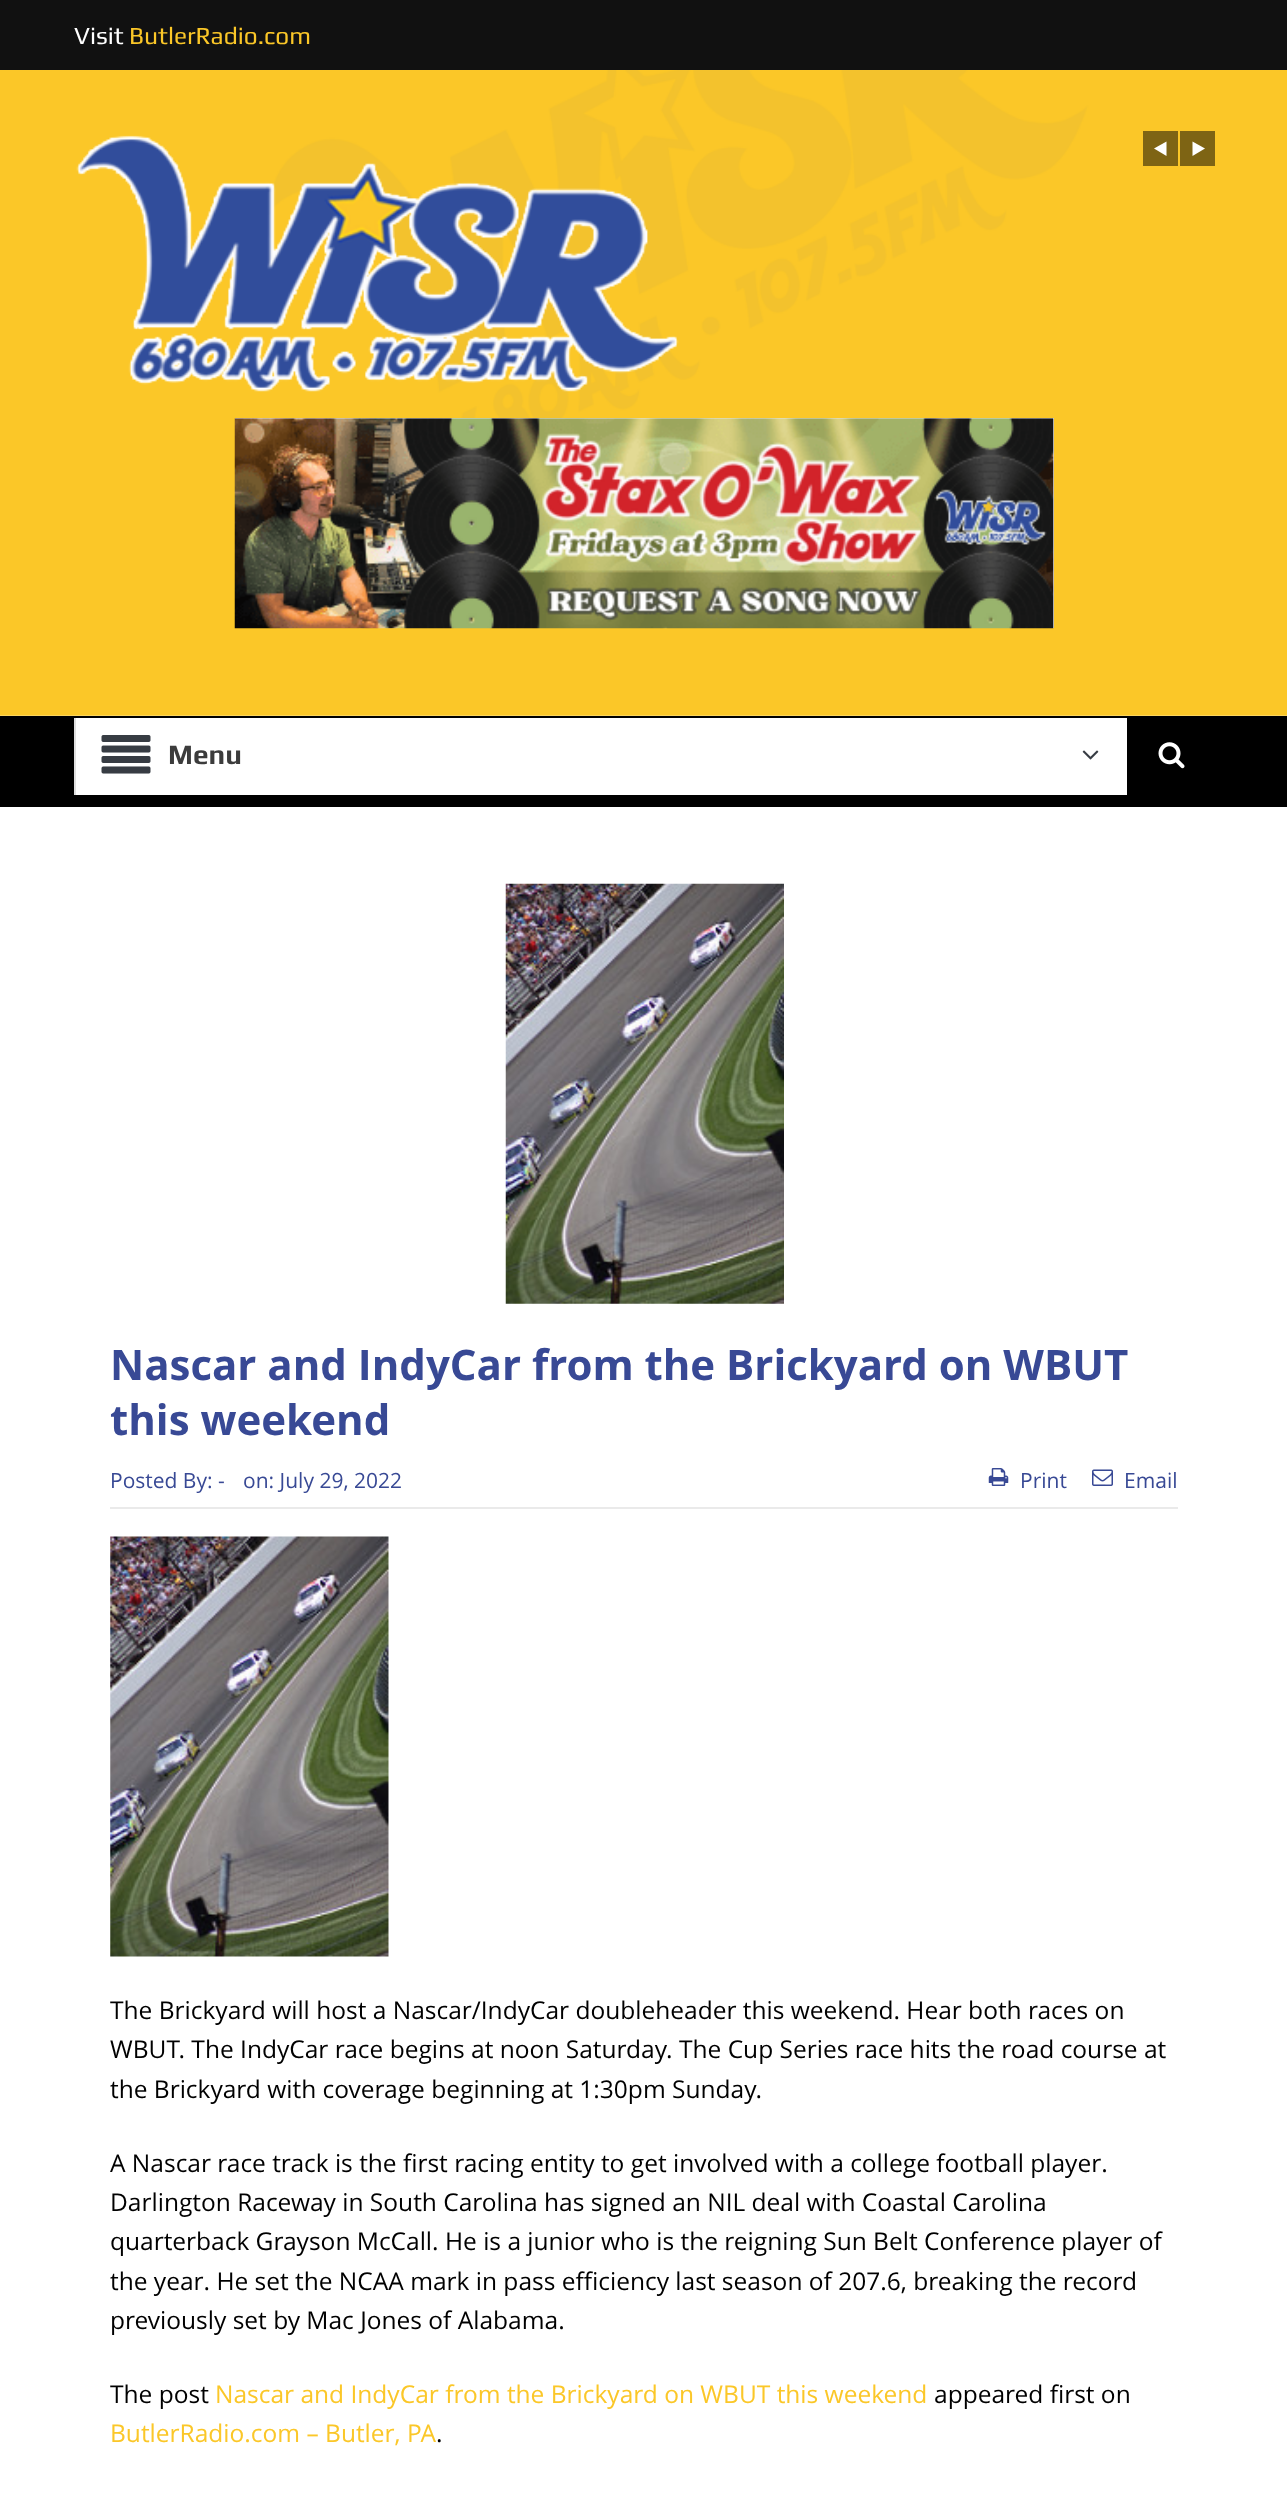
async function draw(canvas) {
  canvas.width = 1287
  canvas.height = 2514
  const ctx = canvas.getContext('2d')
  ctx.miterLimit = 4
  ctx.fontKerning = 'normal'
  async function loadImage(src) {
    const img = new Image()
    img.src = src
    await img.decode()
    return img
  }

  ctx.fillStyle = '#fff'
  ctx.fillRect(0, 0, 1287, 2514)
  ctx.fillStyle = '#111'
  ctx.fillRect(0, 0, 1287, 70)
  ctx.font = '24.5px Play'
  ctx.fillStyle = '#fff'
  ctx.fillText('Visit', 74, 44)
  ctx.fillStyle = '#fbc728'
  ctx.fillText('ButlerRadio.com', 129, 44)
  ctx.drawImage(await loadImage('image0.png'), 0, 70, 1287, 646)
  ctx.fillStyle = '#7e6414'
  ctx.fillRect(1143, 131, 35, 35)
  ctx.fillStyle = '#fff'
  ctx.beginPath()
  ctx.moveTo(1166.5, 141.5)
  ctx.lineTo(1166.5, 156)
  ctx.lineTo(1154, 148.5)
  ctx.closePath()
  ctx.fill()
  ctx.fillStyle = '#7e6414'
  ctx.fillRect(1180, 131, 35, 35)
  ctx.fillStyle = '#fff'
  ctx.beginPath()
  ctx.moveTo(1192.5, 141.5)
  ctx.lineTo(1192.5, 156)
  ctx.lineTo(1205, 148.5)
  ctx.closePath()
  ctx.fill()
  ctx.fillStyle = '#e5e5e5'
  ctx.fillRect(235, 418, 819, 210)
  ctx.drawImage(await loadImage('image1.png'), 234, 418, 820, 211)
  ctx.drawImage(await loadImage('image2.png'), 76, 135, 603, 257)
  ctx.fillStyle = '#000'
  ctx.fillRect(0, 716, 1287, 91)
  ctx.fillStyle = '#fff'
  ctx.fillRect(76, 718, 1051, 77)
  ctx.fillStyle = '#dfdfdf'
  ctx.fillRect(74, 718, 2, 77)
  ctx.drawImage(await loadImage('image3.png'), 101, 735, 50, 39)
  ctx.font = 'bold 28px Play'
  ctx.fillStyle = '#3c3c3c'
  ctx.fillText('Menu', 168, 764)
  ctx.drawImage(await loadImage('image4.png'), 1082, 750, 17, 10)
  ctx.drawImage(await loadImage('image5.png'), 1158, 742, 27, 27)
  ctx.drawImage(await loadImage('image6.png'), 505, 883, 279, 421)
  ctx.font = 'bold 42px Open Sans'
  ctx.fillStyle = '#384995'
  ctx.fillText('Nascar and IndyCar from the Brickyard on WBUT', 110, 1380)
  ctx.fillText('this weekend', 110, 1435)
  ctx.fillStyle = '#eaeaea'
  ctx.fillRect(110, 1507, 1068, 2)
  ctx.font = '21px Open Sans'
  ctx.fillStyle = '#384995'
  ctx.fillText('Posted By: -', 110, 1488)
  ctx.fillText('on: July 29, 2022', 243, 1488)
  ctx.drawImage(await loadImage('image7.png'), 988, 1468, 21, 18)
  ctx.fillText('Print', 1020, 1488)
  ctx.drawImage(await loadImage('image8.png'), 1092, 1469, 21, 17)
  ctx.fillText('Email', 1124, 1488)
  ctx.drawImage(await loadImage('image9.png'), 110, 1536, 279, 421)
  ctx.font = '24.5px Open Sans'
  ctx.fillStyle = '#000'
  ctx.fillText('The Brickyard will host a Nascar/IndyCar doubleheader this weekend. Hear both races on', 110, 2019)
  ctx.fillText('WBUT. The IndyCar race begins at noon Saturday. The Cup Series race hits the road course at', 110, 2058)
  ctx.fillText('the Brickyard with coverage beginning at 1:30pm Sunday.', 110, 2098)
  ctx.fillText('A Nascar race track is the first racing entity to get involved with a college football player.', 110, 2172)
  ctx.fillText('Darlington Raceway in South Carolina has signed an NIL deal with Coastal Carolina', 110, 2211)
  ctx.fillText('quarterback Grayson McCall. He is a junior who is the reigning Sun Belt Conference player of', 110, 2250)
  ctx.fillText('the year. He set the NCAA mark in pass efficiency last season of 207.6, breaking the record', 110, 2290)
  ctx.fillText('previously set by Mac Jones of Alabama.', 110, 2329)
  ctx.fillText('The post', 110, 2403)
  ctx.fillStyle = '#fbc728'
  ctx.fillText('Nascar and IndyCar from the Brickyard on WBUT this weekend', 215, 2403)
  ctx.fillStyle = '#000'
  ctx.fillText('appeared first on', 934, 2403)
  ctx.fillStyle = '#fbc728'
  ctx.fillText('ButlerRadio.com – Butler, PA', 110, 2442)
  ctx.fillStyle = '#000'
  ctx.fillText('.', 436, 2442)
}

draw(document.querySelector('canvas'))
